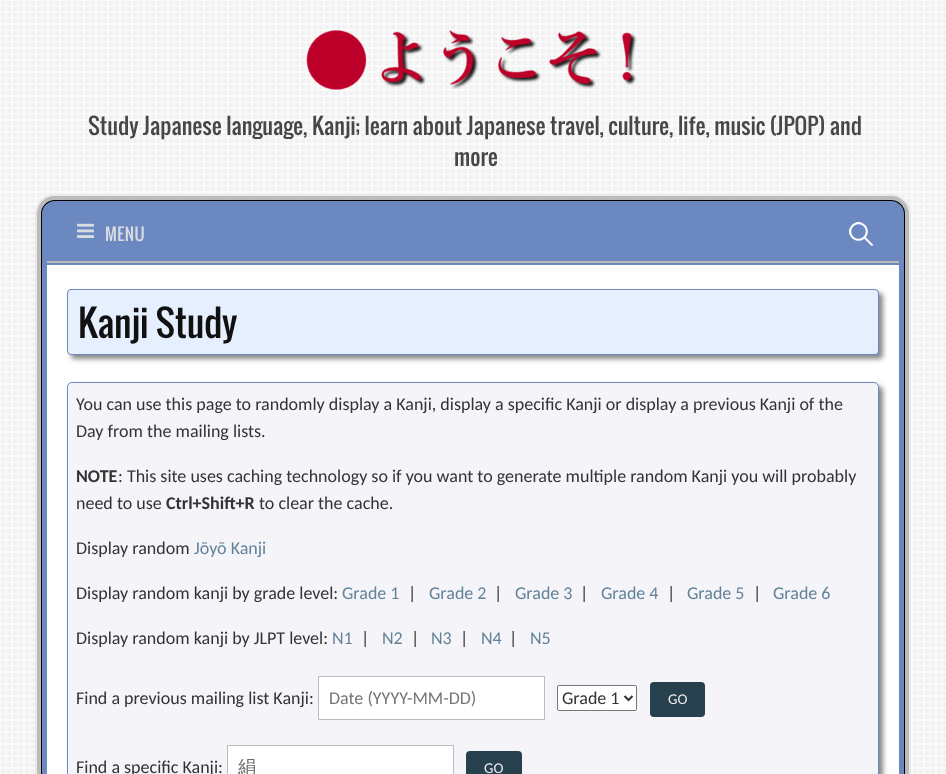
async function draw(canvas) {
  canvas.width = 946
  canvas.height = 774
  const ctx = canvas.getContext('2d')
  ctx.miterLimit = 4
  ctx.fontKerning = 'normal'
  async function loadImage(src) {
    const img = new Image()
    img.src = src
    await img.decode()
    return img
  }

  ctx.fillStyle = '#f9f9f9'
  ctx.fillRect(0, 0, 946, 774)
  ctx.drawImage(await loadImage('image0.png'), 1, 1, 945, 772)
  ctx.drawImage(await loadImage('image1.png'), 306, 30, 331, 60)
  ctx.font = '22px Oswald'
  ctx.fillStyle = '#474747'
  ctx.fillText('Study Japanese language, Kanji; learn about Japanese travel, culture, life, music (JPOP) and', 88, 135)
  ctx.fillText('more', 454, 166)
  ctx.beginPath()
  ctx.roundRect(41, 200, 864, 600, 14)
  ctx.strokeStyle = '#e9e9e9'
  ctx.lineWidth = 12
  ctx.stroke()
  ctx.beginPath()
  ctx.roundRect(42, 201, 862, 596, 13)
  ctx.strokeStyle = '#bbb'
  ctx.lineWidth = 10
  ctx.stroke()
  ctx.beginPath()
  ctx.roundRect(44, 203, 858, 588, 11)
  ctx.strokeStyle = '#000'
  ctx.lineWidth = 6
  ctx.stroke()
  ctx.beginPath()
  ctx.roundRect(44.5, 203.5, 857, 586, 10.5)
  ctx.strokeStyle = '#6c88c1'
  ctx.lineWidth = 5
  ctx.stroke()
  ctx.fillStyle = '#fff'
  ctx.beginPath()
  ctx.roundRect(47, 206, 852, 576, 8)
  ctx.fill()
  ctx.fillStyle = '#6c88c1'
  ctx.beginPath()
  ctx.roundRect(45, 204, 856, 61, [8, 8, 0, 0])
  ctx.fill()
  ctx.fillStyle = '#bbb'
  ctx.fillRect(47, 261, 852, 2)
  ctx.drawImage(await loadImage('image2.png'), 77, 223, 17, 15)
  ctx.letterSpacing = '0.5px'
  ctx.font = '16.5px Oswald'
  ctx.fillStyle = '#d9dce1'
  ctx.fillText('MENU', 105, 241)
  ctx.drawImage(await loadImage('image3.png'), 849, 222, 24, 24)
  ctx.fillStyle = '#888'
  ctx.filter = 'blur(2.5px)'
  ctx.beginPath()
  ctx.roundRect(71, 293, 812, 66, 4)
  ctx.fill()
  ctx.filter = 'none'
  ctx.fillStyle = '#e5effe'
  ctx.beginPath()
  ctx.roundRect(67.5, 289.5, 811, 65, 3.5)
  ctx.fill()
  ctx.lineWidth = 1
  ctx.stroke()
  ctx.letterSpacing = '-0.25px'
  ctx.font = '36px Oswald'
  ctx.fillStyle = '#111'
  ctx.fillText('Kanji Study', 78, 338)
  ctx.fillStyle = '#888'
  ctx.filter = 'blur(2.5px)'
  ctx.beginPath()
  ctx.roundRect(71, 386, 812, 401, 5)
  ctx.fill()
  ctx.filter = 'none'
  ctx.fillStyle = '#f5f5f9'
  ctx.beginPath()
  ctx.roundRect(67.5, 382.5, 811, 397, 4.5)
  ctx.fill()
  ctx.stroke()
  ctx.letterSpacing = '0px'
  ctx.font = '18px Carlito'
  ctx.fillStyle = '#333'
  ctx.fillText('You can use this page to randomly display a Kanji, display a specific Kanji or display a previous Kanji of the', 76, 410)
  ctx.fillText('Day from the mailing lists.', 76, 437)
  ctx.font = 'bold 18px Carlito'
  ctx.fillText('NOTE', 76, 482)
  ctx.font = '18px Carlito'
  ctx.fillText(': This site uses caching technology so if you want to generate multiple random Kanji you will probably', 118, 482)
  ctx.fillText('need to use', 76, 509)
  ctx.font = 'bold 18px Carlito'
  ctx.fillText('Ctrl+Shift+R', 166, 509)
  ctx.font = '18px Carlito'
  ctx.fillText('to clear the cache.', 259, 509)
  ctx.fillText('Display random', 76, 554)
  ctx.fillStyle = '#628299'
  ctx.fillText('Jōyō Kanji', 194, 554)
  ctx.fillStyle = '#333'
  ctx.fillText('Display random kanji by grade level:', 76, 599)
  ctx.fillStyle = '#628299'
  ctx.fillText('Grade 1', 342, 599)
  ctx.fillStyle = '#333'
  ctx.fillText('|', 408, 599)
  ctx.fillStyle = '#628299'
  ctx.fillText('Grade 2', 429, 599)
  ctx.fillStyle = '#333'
  ctx.fillText('|', 494, 599)
  ctx.fillStyle = '#628299'
  ctx.fillText('Grade 3', 515, 599)
  ctx.fillStyle = '#333'
  ctx.fillText('|', 580, 599)
  ctx.fillStyle = '#628299'
  ctx.fillText('Grade 4', 601, 599)
  ctx.fillStyle = '#333'
  ctx.fillText('|', 667, 599)
  ctx.fillStyle = '#628299'
  ctx.fillText('Grade 5', 687, 599)
  ctx.fillStyle = '#333'
  ctx.fillText('|', 753, 599)
  ctx.fillStyle = '#628299'
  ctx.fillText('Grade 6', 773, 599)
  ctx.fillStyle = '#333'
  ctx.fillText('Display random kanji by JLPT level:', 76, 644)
  ctx.fillStyle = '#628299'
  ctx.fillText('N1', 332, 644)
  ctx.fillStyle = '#333'
  ctx.fillText('|', 361, 644)
  ctx.fillStyle = '#628299'
  ctx.fillText('N2', 382, 644)
  ctx.fillStyle = '#333'
  ctx.fillText('|', 411, 644)
  ctx.fillStyle = '#628299'
  ctx.fillText('N3', 431, 644)
  ctx.fillStyle = '#333'
  ctx.fillText('|', 460, 644)
  ctx.fillStyle = '#628299'
  ctx.fillText('N4', 481, 644)
  ctx.fillStyle = '#333'
  ctx.fillText('|', 509, 644)
  ctx.fillStyle = '#628299'
  ctx.fillText('N5', 530, 644)
  ctx.fillStyle = '#333'
  ctx.fillText('Find a previous mailing list Kanji:', 76, 704)
  ctx.fillStyle = '#fff'
  ctx.beginPath()
  ctx.rect(318.5, 676.5, 226, 43)
  ctx.fill()
  ctx.strokeStyle = '#bbb'
  ctx.stroke()
  ctx.fillStyle = '#757575'
  ctx.fillText('Date (YYYY-MM-DD)', 329, 704)
  ctx.fillStyle = '#fff'
  ctx.beginPath()
  ctx.roundRect(557.5, 685.5, 79, 25, 1.5)
  ctx.fill()
  ctx.strokeStyle = '#767676'
  ctx.stroke()
  ctx.beginPath()
  ctx.moveTo(624.5, 696)
  ctx.lineTo(628.5, 700)
  ctx.lineTo(632.5, 696)
  ctx.strokeStyle = '#333'
  ctx.lineWidth = 2
  ctx.stroke()
  ctx.fillStyle = '#333'
  ctx.fillText('Grade 1', 562, 704)
  ctx.fillStyle = '#26404e'
  ctx.beginPath()
  ctx.roundRect(650, 682, 55, 35, 4)
  ctx.fill()
  ctx.font = '15px Carlito'
  ctx.fillStyle = '#eee'
  ctx.fillText('GO', 668, 704)
  ctx.font = '18px Carlito'
  ctx.fillStyle = '#333'
  ctx.fillText('Find a specific Kanji:', 76, 773)
  ctx.fillStyle = '#fff'
  ctx.beginPath()
  ctx.rect(227.5, 745.5, 226, 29)
  ctx.fill()
  ctx.strokeStyle = '#bbb'
  ctx.lineWidth = 1
  ctx.stroke()
  ctx.font = '500 18px WenQuanYi Zen Hei'
  ctx.fillStyle = '#666'
  ctx.fillText('絹', 238, 773)
  ctx.fillStyle = '#26404e'
  ctx.beginPath()
  ctx.roundRect(466, 751, 56, 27, 4)
  ctx.fill()
  ctx.font = '15px Carlito'
  ctx.fillStyle = '#eee'
  ctx.fillText('GO', 484, 773)
}

draw(document.querySelector('canvas'))
